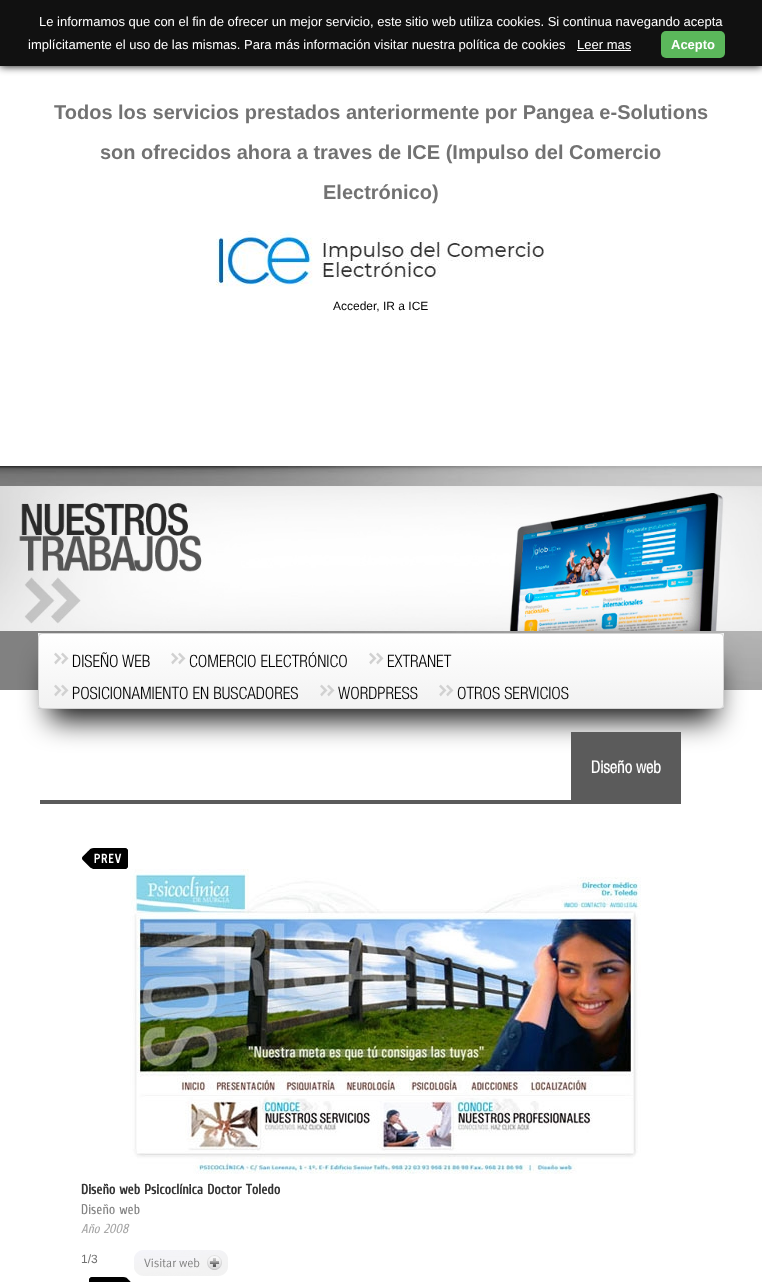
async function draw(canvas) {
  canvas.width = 762
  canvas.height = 1282
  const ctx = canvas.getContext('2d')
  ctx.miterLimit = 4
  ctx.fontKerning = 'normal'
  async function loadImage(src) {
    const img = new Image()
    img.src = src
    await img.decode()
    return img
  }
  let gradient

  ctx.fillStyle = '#fff'
  ctx.fillRect(0, 0, 762, 1282)
  ctx.fillStyle = '#000'
  ctx.filter = 'blur(4px)'
  ctx.beginPath()
  ctx.rect(0, 0, 762, 66)
  ctx.fill()
  ctx.filter = 'none'
  ctx.fillStyle = '#111'
  ctx.fillRect(0, 0, 762, 66)
  ctx.font = '13px Liberation Sans'
  ctx.fillStyle = '#fff'
  ctx.fillText('Le informamos que con el fin de ofrecer un mejor servicio, este sitio web utiliza cookies. Si continua navegando acepta', 39, 26)
  ctx.fillText('implícitamente el uso de las mismas. Para más información visitar nuestra política de cookies', 28, 49)
  ctx.fillText('Leer mas', 577, 49)
  ctx.fillRect(577, 50, 54, 1)
  ctx.fillStyle = '#5bb75b'
  ctx.beginPath()
  ctx.roundRect(661, 31, 64, 27, 5)
  ctx.fill()
  ctx.font = 'bold 13px Liberation Sans'
  ctx.fillStyle = '#fff'
  ctx.fillText('Acepto', 671, 49)
  ctx.font = 'bold 20px Liberation Sans'
  ctx.fillStyle = '#727272'
  ctx.fillText('Todos los servicios prestados anteriormente por Pangea e-Solutions', 54, 119)
  ctx.fillText('son ofrecidos ahora a traves de ICE (Impulso del Comercio', 100, 159)
  ctx.fillText('Electrónico)', 323, 199)
  ctx.drawImage(await loadImage('image0.png'), 215, 230, 329, 57)
  ctx.font = '12px Liberation Sans'
  ctx.fillStyle = '#000'
  ctx.fillText('Acceder, IR a ICE', 333, 310)
  ctx.drawImage(await loadImage('image1.png'), 0, 466, 762, 224)
  ctx.fillStyle = '#eff1f2'
  ctx.fillRect(38, 633, 686, 76)
  ctx.fillStyle = '#000000eb'
  ctx.filter = 'blur(14px)'
  ctx.beginPath()
  ctx.rect(50, 664, 666, 56)
  ctx.fill()
  ctx.filter = 'none'
  ctx.drawImage(await loadImage('image2.png'), 0, 486, 762, 145)
  ctx.save()
  ctx.beginPath()
  ctx.roundRect(38, 633, 686, 76, 4)
  ctx.clip()
  gradient = ctx.createLinearGradient(381, 634, 381, 708)
  gradient.addColorStop(0, '#fff')
  gradient.addColorStop(1, '#f2f2f2')
  ctx.fillStyle = gradient
  ctx.fillRect(38, 634, 686, 74)
  ctx.restore()
  ctx.beginPath()
  ctx.roundRect(38.5, 633.5, 685, 75, 3.5)
  ctx.strokeStyle = '#d4d4d4'
  ctx.stroke()
  ctx.drawImage(await loadImage('image3.png'), 54, 652, 15, 13)
  ctx.font = '300 17px Helvetica Neue'
  ctx.fillStyle = '#000'
  ctx.fillText('DISEÑO WEB', 72, 667)
  ctx.drawImage(await loadImage('image3.png'), 171, 652, 15, 13)
  ctx.fillText('COMERCIO ELECTRÓNICO', 189, 667)
  ctx.drawImage(await loadImage('image3.png'), 369, 652, 15, 13)
  ctx.fillText('EXTRANET', 387, 667)
  ctx.drawImage(await loadImage('image4.png'), 54, 684, 15, 13)
  ctx.fillText('POSICIONAMIENTO EN BUSCADORES', 72, 699)
  ctx.drawImage(await loadImage('image4.png'), 320, 684, 15, 13)
  ctx.fillText('WORDPRESS', 338, 699)
  ctx.drawImage(await loadImage('image4.png'), 439, 684, 15, 13)
  ctx.fillText('OTROS SERVICIOS', 457, 699)
  ctx.fillStyle = '#5b5b5b'
  ctx.fillRect(571, 732, 110, 68)
  ctx.font = 'bold 17px Helvetica Neue'
  ctx.fillStyle = '#fff'
  ctx.fillText('Diseño web', 591, 773)
  ctx.fillStyle = '#5b5b5b'
  ctx.fillRect(40, 800, 641, 4)
  ctx.drawImage(await loadImage('image5.png'), 82, 848, 46, 21)
  ctx.drawImage(await loadImage('image6.png'), 130, 869, 511, 305)
  ctx.font = 'bold 14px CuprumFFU'
  ctx.fillStyle = '#333'
  ctx.fillText('Diseño web Psicoclínica Doctor Toledo', 81, 1194)
  ctx.font = '14px CuprumFFU'
  ctx.fillStyle = '#838383'
  ctx.fillText('Diseño web', 81, 1214)
  ctx.font = 'italic 13px CuprumFFU'
  ctx.fillStyle = '#a7a7a7'
  ctx.fillText('Año 2008', 81, 1233)
  ctx.font = '12px Liberation Sans'
  ctx.fillStyle = '#727272'
  ctx.fillText('1/3', 81, 1263)
  ctx.drawImage(await loadImage('image7.png'), 134, 1250, 94, 26)
  ctx.drawImage(await loadImage('image8.png'), 89, 1277, 42, 5)
}

draw(document.querySelector('canvas'))
